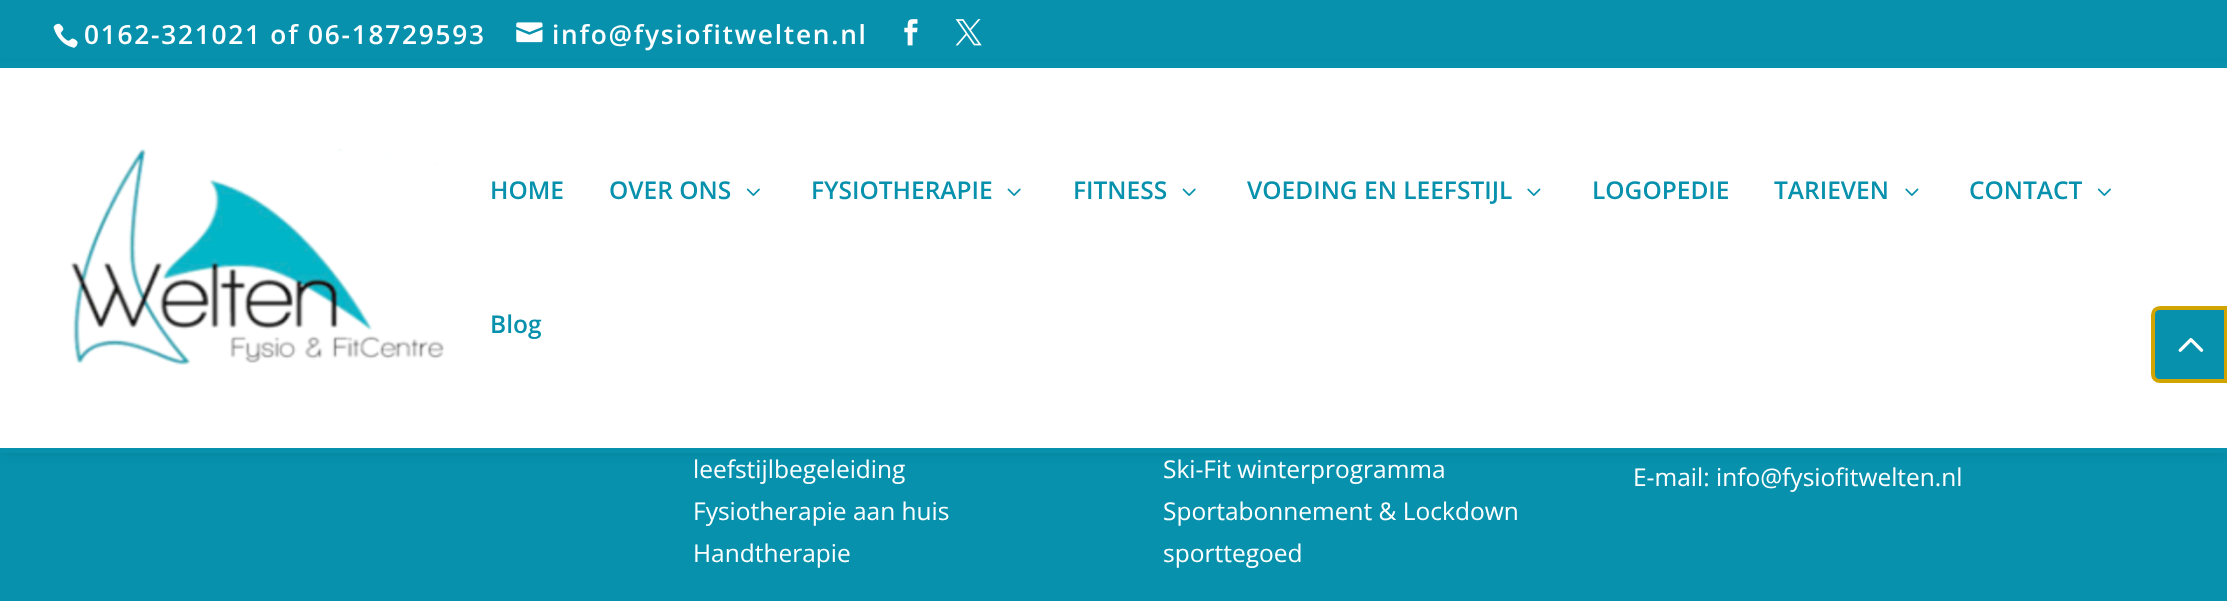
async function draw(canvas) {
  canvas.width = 2227
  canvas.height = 601
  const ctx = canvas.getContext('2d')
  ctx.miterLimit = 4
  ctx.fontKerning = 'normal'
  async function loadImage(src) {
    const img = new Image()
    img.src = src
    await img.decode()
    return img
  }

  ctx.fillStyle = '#0791ad'
  ctx.fillRect(0, 0, 2227, 601)
  ctx.fillStyle = '#0000001a'
  ctx.filter = 'blur(6px)'
  ctx.beginPath()
  ctx.rect(0, 68, 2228, 385)
  ctx.fill()
  ctx.filter = 'none'
  ctx.fillStyle = '#0791ad'
  ctx.fillRect(0, 62, 2227, 6)
  ctx.drawImage(await loadImage('image0.png'), 53, 23, 25, 25)
  ctx.letterSpacing = '1.75px'
  ctx.font = '600 26.25px Open Sans'
  ctx.fillStyle = '#fff'
  ctx.fillText('0162-321021 of 06-18729593', 84, 44)
  ctx.drawImage(await loadImage('image1.png'), 516, 22, 27, 21)
  ctx.fillText('info@fysiofitwelten.nl', 552, 44)
  ctx.drawImage(await loadImage('image2.png'), 904, 19, 14, 27)
  ctx.drawImage(await loadImage('image3.png'), 955, 19, 27, 27)
  ctx.fillRect(0, 68, 2227, 380)
  ctx.fillStyle = '#0791ad'
  ctx.fillRect(0, 448, 2227, 5)
  ctx.drawImage(await loadImage('image4.png'), 70, 148, 375, 217)
  ctx.letterSpacing = '0px'
  ctx.font = '600 24.5px Open Sans'
  ctx.fillText('HOME', 490, 199)
  ctx.fillText('OVER ONS', 609, 199)
  ctx.drawImage(await loadImage('image5.png'), 746, 188, 14, 8)
  ctx.fillText('FYSIOTHERAPIE', 811, 199)
  ctx.drawImage(await loadImage('image6.png'), 1007, 188, 14, 8)
  ctx.fillText('FITNESS', 1073, 199)
  ctx.drawImage(await loadImage('image6.png'), 1182, 188, 14, 8)
  ctx.fillText('VOEDING EN LEEFSTIJL', 1247, 199)
  ctx.drawImage(await loadImage('image7.png'), 1527, 188, 14, 8)
  ctx.fillText('LOGOPEDIE', 1592, 199)
  ctx.fillText('TARIEVEN', 1774, 199)
  ctx.drawImage(await loadImage('image7.png'), 1905, 188, 14, 8)
  ctx.fillText('CONTACT', 1969, 199)
  ctx.drawImage(await loadImage('image5.png'), 2097, 188, 14, 8)
  ctx.fillText('Blog', 490, 333)
  ctx.beginPath()
  ctx.moveTo(2160, 308)
  ctx.lineTo(2226, 308)
  ctx.lineTo(2226, 381)
  ctx.lineTo(2160, 381)
  ctx.bezierCurveTo(2156, 381, 2153, 378, 2153, 374)
  ctx.lineTo(2153, 315)
  ctx.bezierCurveTo(2153, 311, 2156, 308, 2160, 308)
  ctx.closePath()
  ctx.fill()
  ctx.strokeStyle = '#d1a401'
  ctx.lineWidth = 4
  ctx.stroke()
  ctx.drawImage(await loadImage('image8.png'), 2178, 338, 26, 14)
  ctx.font = '24.5px Open Sans'
  ctx.fillStyle = '#fff'
  ctx.fillText('leefstijlbegeleiding', 693, 478)
  ctx.fillText('Fysiotherapie aan huis', 693, 520)
  ctx.fillText('Handtherapie', 693, 562)
  ctx.fillText('Ski-Fit winterprogramma', 1163, 478)
  ctx.fillText('Sportabonnement & Lockdown', 1163, 520)
  ctx.fillText('sporttegoed', 1163, 562)
  ctx.fillText('E-mail: info@fysiofitwelten.nl', 1633, 486)
}

draw(document.querySelector('canvas'))
